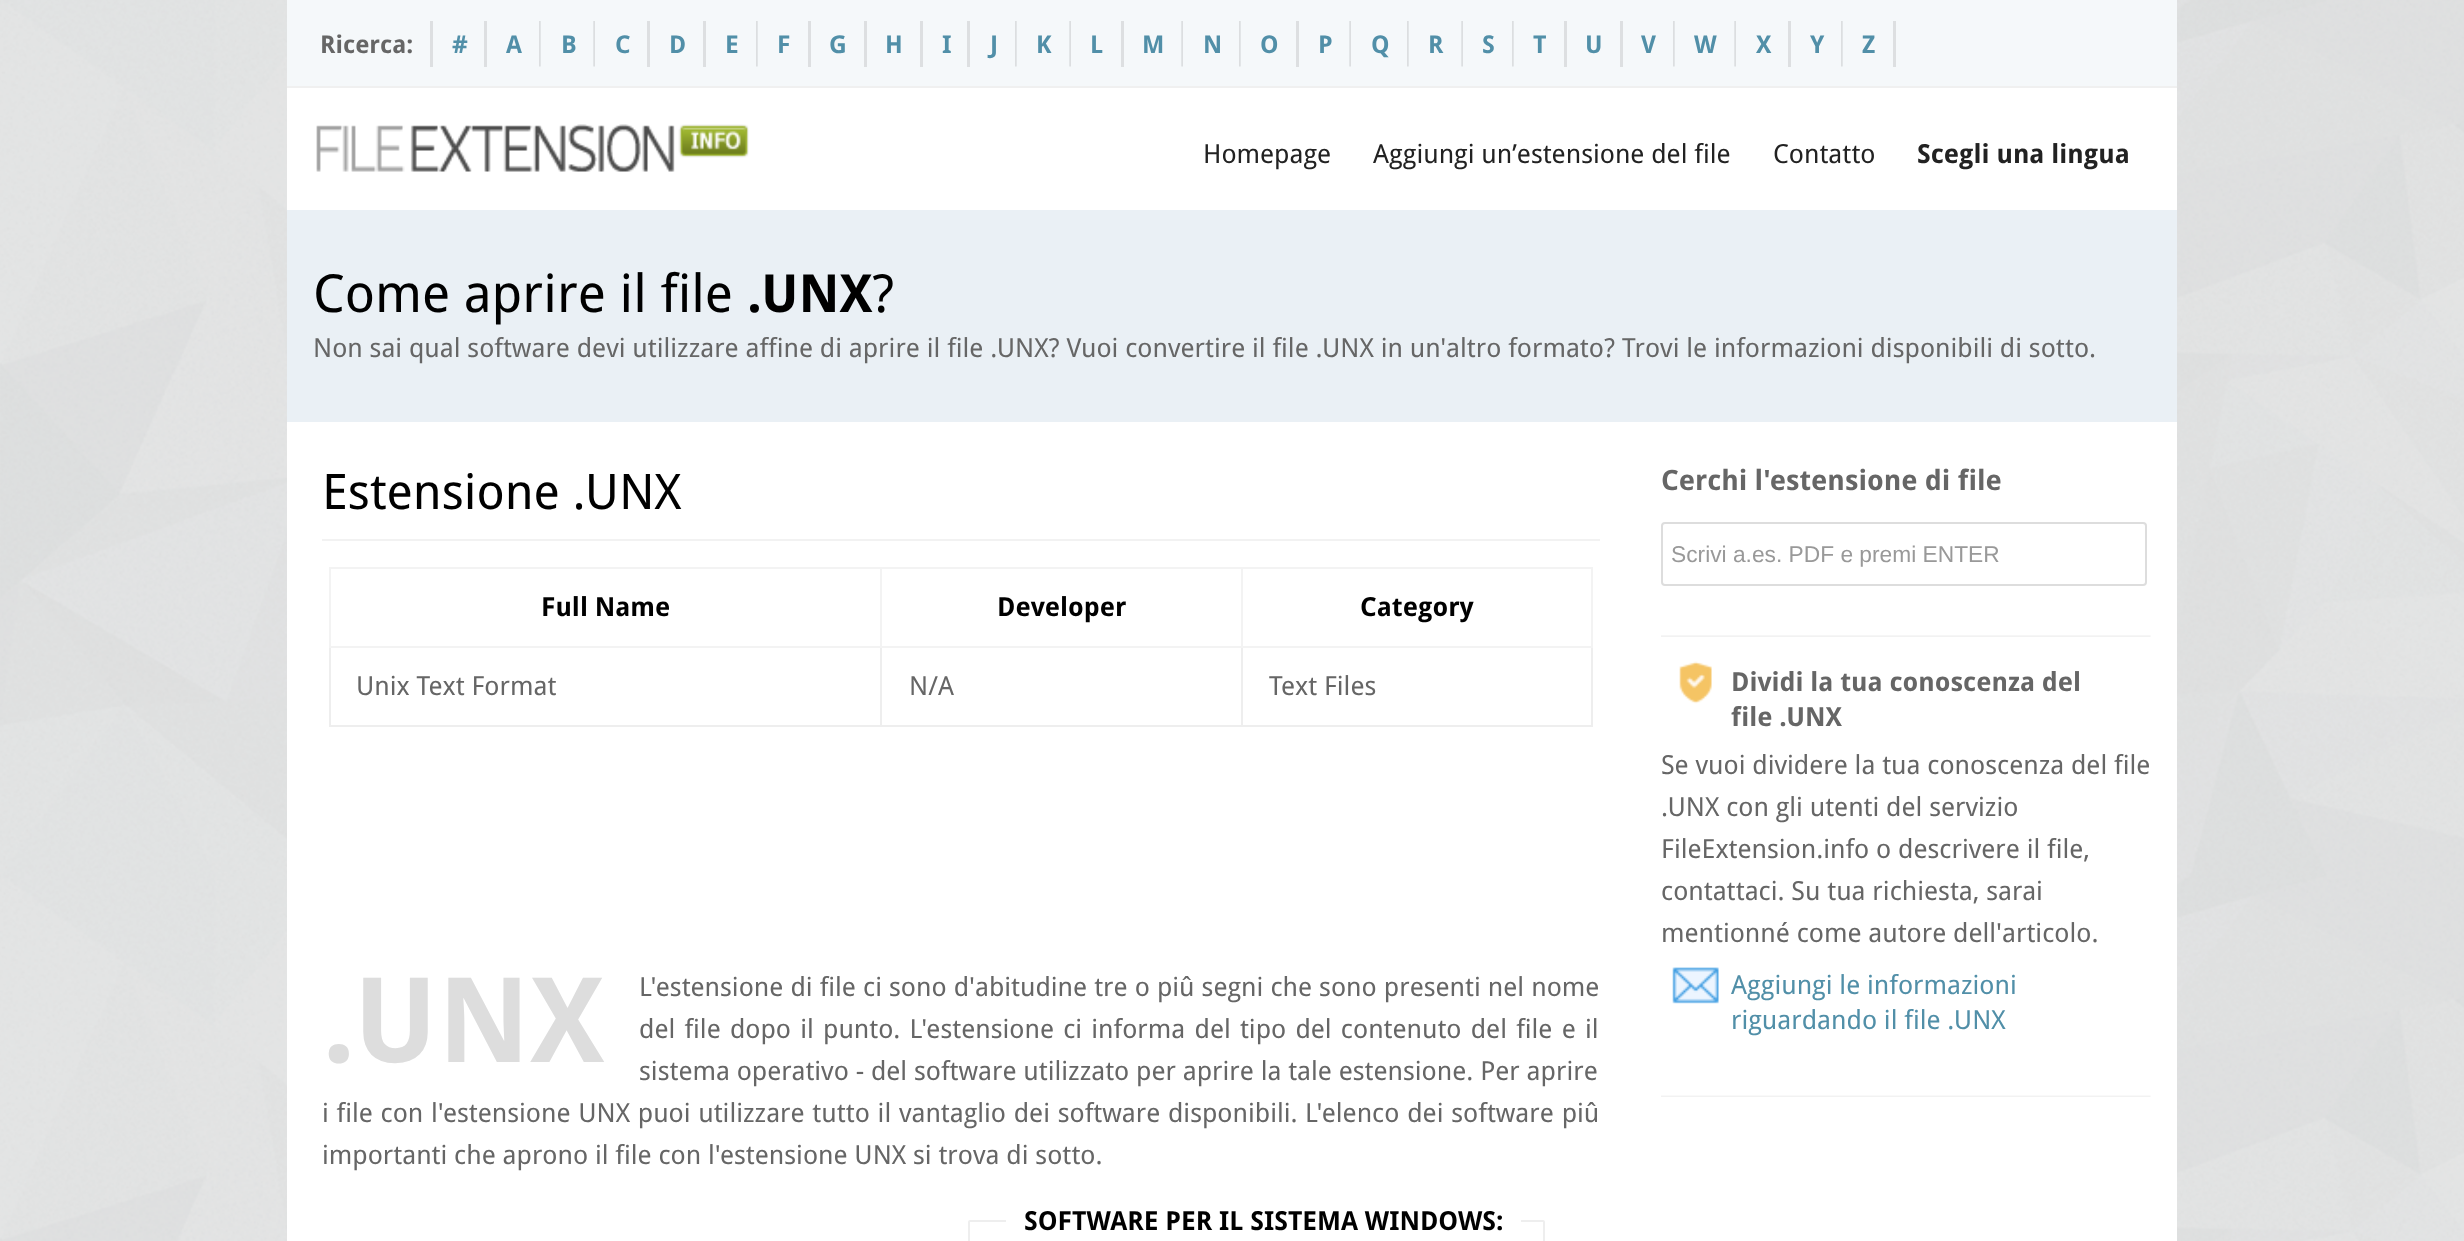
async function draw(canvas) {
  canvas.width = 2464
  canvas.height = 1241
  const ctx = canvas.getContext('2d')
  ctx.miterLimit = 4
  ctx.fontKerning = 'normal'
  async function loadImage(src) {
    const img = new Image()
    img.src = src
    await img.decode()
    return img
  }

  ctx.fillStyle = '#fff'
  ctx.fillRect(0, 0, 2464, 1241)
  ctx.drawImage(await loadImage('image0.png'), 0, 0, 2464, 1241)
  ctx.fillRect(287, 88, 1890, 1153)
  ctx.fillStyle = '#f5f8fa'
  ctx.fillRect(287, 0, 1890, 86)
  ctx.fillStyle = '#f0f0f0'
  ctx.fillRect(287, 86, 1890, 2)
  ctx.fillStyle = '#dddfe1'
  ctx.fillRect(430, 21, 3, 46)
  ctx.font = 'bold 24.5px Droid Sans'
  ctx.fillStyle = '#666'
  ctx.fillText('Ricerca:', 320, 53)
  ctx.fillStyle = '#dddfe1'
  ctx.fillRect(484, 21, 3, 46)
  ctx.fillStyle = '#518fa8'
  ctx.fillText('#', 452, 53)
  ctx.drawImage(await loadImage('image1.png'), 539, 21, 2, 46)
  ctx.fillText('A', 506, 53)
  ctx.drawImage(await loadImage('image2.png'), 593, 21, 2, 46)
  ctx.fillText('B', 561, 53)
  ctx.fillStyle = '#dddfe1'
  ctx.fillRect(647, 21, 3, 46)
  ctx.fillStyle = '#518fa8'
  ctx.fillText('C', 615, 53)
  ctx.fillStyle = '#dddfe1'
  ctx.fillRect(703, 21, 3, 46)
  ctx.fillStyle = '#518fa8'
  ctx.fillText('D', 669, 53)
  ctx.drawImage(await loadImage('image1.png'), 756, 21, 2, 46)
  ctx.fillText('E', 725, 53)
  ctx.fillStyle = '#dddfe1'
  ctx.fillRect(808, 21, 3, 46)
  ctx.fillStyle = '#518fa8'
  ctx.fillText('F', 777, 53)
  ctx.fillStyle = '#dddfe1'
  ctx.fillRect(864, 21, 3, 46)
  ctx.fillStyle = '#518fa8'
  ctx.fillText('G', 829, 53)
  ctx.fillStyle = '#dddfe1'
  ctx.fillRect(920, 21, 3, 46)
  ctx.fillStyle = '#518fa8'
  ctx.fillText('H', 885, 53)
  ctx.fillStyle = '#dddfe1'
  ctx.fillRect(967, 21, 3, 46)
  ctx.fillStyle = '#518fa8'
  ctx.fillText('I', 942, 53)
  ctx.drawImage(await loadImage('image1.png'), 1015, 21, 2, 46)
  ctx.fillText('J', 990, 53)
  ctx.drawImage(await loadImage('image2.png'), 1069, 21, 2, 46)
  ctx.fillText('K', 1036, 53)
  ctx.fillStyle = '#dddfe1'
  ctx.fillRect(1121, 21, 3, 46)
  ctx.fillStyle = '#518fa8'
  ctx.fillText('L', 1090, 53)
  ctx.drawImage(await loadImage('image2.png'), 1181, 21, 2, 46)
  ctx.fillText('M', 1142, 53)
  ctx.drawImage(await loadImage('image1.png'), 1239, 21, 2, 46)
  ctx.fillText('N', 1203, 53)
  ctx.fillStyle = '#dddfe1'
  ctx.fillRect(1296, 21, 3, 46)
  ctx.fillStyle = '#518fa8'
  ctx.fillText('O', 1260, 53)
  ctx.drawImage(await loadImage('image2.png'), 1349, 21, 2, 46)
  ctx.fillText('P', 1318, 53)
  ctx.drawImage(await loadImage('image1.png'), 1407, 21, 2, 46)
  ctx.fillText('Q', 1371, 53)
  ctx.drawImage(await loadImage('image2.png'), 1461, 21, 2, 46)
  ctx.fillText('R', 1428, 53)
  ctx.drawImage(await loadImage('image1.png'), 1512, 21, 2, 46)
  ctx.fillText('S', 1482, 53)
  ctx.fillStyle = '#dddfe1'
  ctx.fillRect(1564, 21, 3, 46)
  ctx.fillStyle = '#518fa8'
  ctx.fillText('T', 1533, 53)
  ctx.fillStyle = '#dddfe1'
  ctx.fillRect(1620, 21, 3, 46)
  ctx.fillStyle = '#518fa8'
  ctx.fillText('U', 1585, 53)
  ctx.drawImage(await loadImage('image1.png'), 1673, 21, 2, 46)
  ctx.fillText('V', 1641, 53)
  ctx.drawImage(await loadImage('image2.png'), 1734, 21, 2, 46)
  ctx.fillText('W', 1694, 53)
  ctx.fillStyle = '#dddfe1'
  ctx.fillRect(1788, 21, 3, 46)
  ctx.fillStyle = '#518fa8'
  ctx.fillText('X', 1756, 53)
  ctx.drawImage(await loadImage('image1.png'), 1841, 21, 2, 46)
  ctx.fillText('Y', 1810, 53)
  ctx.fillStyle = '#dddfe1'
  ctx.fillRect(1893, 21, 3, 46)
  ctx.fillStyle = '#518fa8'
  ctx.fillText('Z', 1862, 53)
  ctx.drawImage(await loadImage('image3.png'), 316, 124, 433, 48)
  ctx.font = '26.25px Droid Sans'
  ctx.fillStyle = '#222'
  ctx.fillText('Homepage', 1203, 163)
  ctx.fillText('Aggiungi un’estensione del file', 1373, 163)
  ctx.fillText('Contatto', 1773, 163)
  ctx.font = 'bold 26.25px Droid Sans'
  ctx.fillText('Scegli una lingua', 1917, 163)
  ctx.fillStyle = '#eaf0f5'
  ctx.fillRect(287, 210, 1890, 212)
  ctx.font = '52.5px Droid Sans'
  ctx.fillStyle = '#000'
  ctx.fillText('Come aprire il file', 313, 312)
  ctx.font = 'bold 52.5px Droid Sans'
  ctx.fillText('.UNX', 747, 312)
  ctx.font = '52.5px Droid Sans'
  ctx.fillText('?', 872, 312)
  ctx.font = '26.25px Droid Sans'
  ctx.fillStyle = '#666'
  ctx.fillText('Non sai qual software devi utilizzare affine di aprire il file .UNX? Vuoi convertire il file .UNX in un\'altro formato? Trovi le informazioni disponibili di sotto.', 313, 357)
  ctx.fillStyle = '#f2f2f2'
  ctx.fillRect(322, 539, 1278, 2)
  ctx.font = '49px Droid Sans'
  ctx.fillStyle = '#000'
  ctx.fillText('Estensione .UNX', 322, 509)
  ctx.fillStyle = '#eee'
  ctx.fillRect(1591, 648, 2, 78)
  ctx.fillRect(329, 725, 1264, 2)
  ctx.fillRect(329, 648, 2, 78)
  ctx.fillStyle = '#f3f3f3'
  ctx.fillRect(1241, 567, 352, 2)
  ctx.fillRect(1591, 567, 2, 81)
  ctx.fillStyle = '#eee'
  ctx.fillRect(1241, 646, 2, 80)
  ctx.fillStyle = '#f3f3f3'
  ctx.fillRect(1241, 646, 352, 2)
  ctx.fillRect(1241, 567, 2, 81)
  ctx.fillRect(880, 567, 363, 2)
  ctx.fillStyle = '#eee'
  ctx.fillRect(880, 646, 2, 80)
  ctx.fillStyle = '#f3f3f3'
  ctx.fillRect(880, 646, 363, 2)
  ctx.fillRect(880, 567, 2, 81)
  ctx.fillRect(329, 567, 553, 2)
  ctx.fillRect(329, 646, 553, 2)
  ctx.fillRect(329, 567, 2, 81)
  ctx.font = 'bold 26.25px Droid Sans'
  ctx.fillStyle = '#000'
  ctx.fillText('Full Name', 541, 616)
  ctx.fillText('Developer', 997, 616)
  ctx.fillText('Category', 1360, 616)
  ctx.font = '26.25px Droid Sans'
  ctx.fillStyle = '#666'
  ctx.fillText('Unix Text Format', 356, 695)
  ctx.fillText('N/A', 909, 695)
  ctx.fillText('Text Files', 1269, 695)
  ctx.font = 'bold 118px Droid Sans'
  ctx.fillStyle = '#ddd'
  ctx.fillText('.UNX', 322, 1062)
  ctx.wordSpacing = '0.25px'
  ctx.font = '26.25px Droid Sans'
  ctx.fillStyle = '#666'
  ctx.fillText('L\'estensione di file ci sono d\'abitudine tre o piû segni che sono presenti nel nome', 639, 996)
  ctx.wordSpacing = '2.4px'
  ctx.fillText('del file dopo il punto. L\'estensione ci informa del tipo del contenuto del file e il', 639, 1038)
  ctx.wordSpacing = '0px'
  ctx.fillText('sistema operativo - del software utilizzato per aprire la tale estensione. Per aprire', 639, 1080)
  ctx.wordSpacing = '0.9px'
  ctx.fillText('i file con l\'estensione UNX puoi utilizzare tutto il vantaglio dei software disponibili.', 322, 1122)
  ctx.wordSpacing = '1px'
  ctx.fillText('L\'elenco dei software piû', 1305, 1122)
  ctx.wordSpacing = '0px'
  ctx.fillText('importanti che aprono il file con l\'estensione UNX si trova di sotto.', 322, 1164)
  ctx.beginPath()
  ctx.roundRect(969, 1221, 575, 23, 1)
  ctx.strokeStyle = '#eee'
  ctx.lineWidth = 2
  ctx.stroke()
  ctx.fillStyle = '#fff'
  ctx.beginPath()
  ctx.roundRect(1006, 1201, 515, 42, 2)
  ctx.fill()
  ctx.font = 'bold 26.25px Droid Sans'
  ctx.fillStyle = '#000'
  ctx.fillText('SOFTWARE PER IL SISTEMA WINDOWS:', 1024, 1230)
  ctx.font = 'bold 28px Droid Sans'
  ctx.fillStyle = '#666'
  ctx.fillText('Cerchi l\'estensione di file', 1661, 490)
  ctx.beginPath()
  ctx.roundRect(1662, 523, 484, 62, 3)
  ctx.strokeStyle = '#ddd'
  ctx.stroke()
  ctx.font = '22.75px Liberation Sans'
  ctx.fillStyle = '#999'
  ctx.fillText('Scrivi a.es. PDF e premi ENTER', 1671, 562)
  ctx.drawImage(await loadImage('image4.png'), 1661, 635, 490, 2)
  ctx.drawImage(await loadImage('image5.png'), 1679, 661, 33, 43)
  ctx.font = 'bold 26.25px Droid Sans'
  ctx.fillStyle = '#666'
  ctx.fillText('Dividi la tua conoscenza del', 1731, 691)
  ctx.fillText('file .UNX', 1731, 726)
  ctx.font = '26.25px Droid Sans'
  ctx.fillText('Se vuoi dividere la tua conoscenza del file', 1661, 774)
  ctx.fillText('.UNX con gli utenti del servizio', 1661, 816)
  ctx.fillText('FileExtension.info o descrivere il file,', 1661, 858)
  ctx.fillText('contattaci. Su tua richiesta, sarai', 1661, 900)
  ctx.fillText('mentionné come autore dell\'articolo.', 1661, 942)
  ctx.drawImage(await loadImage('image6.png'), 1672, 967, 47, 37)
  ctx.fillStyle = '#518fa8'
  ctx.fillText('Aggiungi le informazioni', 1731, 994)
  ctx.fillText('riguardando il file .UNX', 1731, 1029)
  ctx.drawImage(await loadImage('image7.png'), 1661, 1095, 490, 2)
}

draw(document.querySelector('canvas'))
